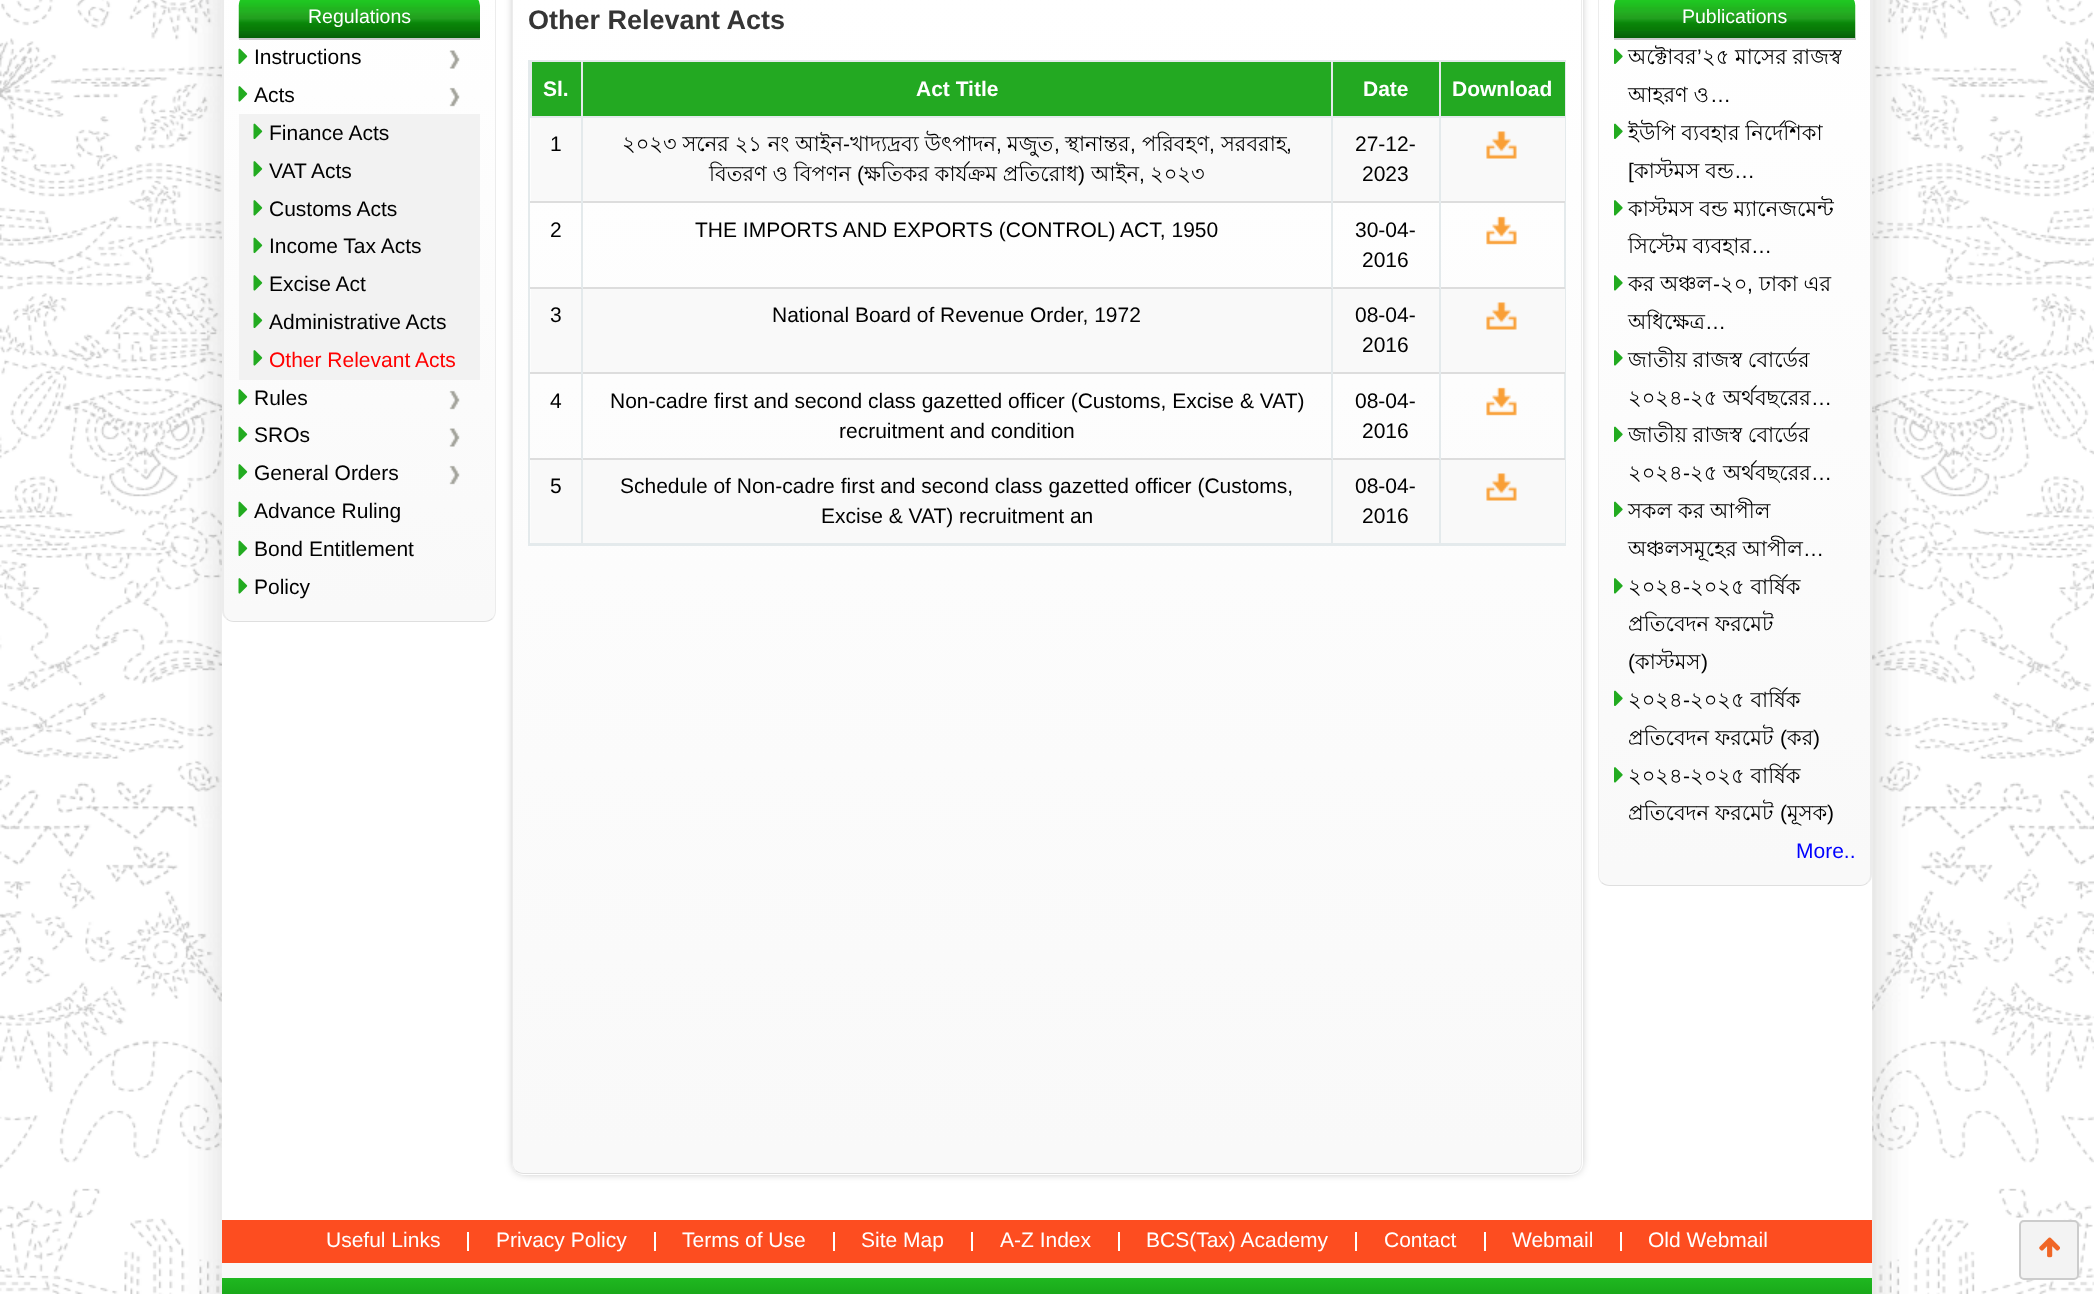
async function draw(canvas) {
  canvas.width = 2094
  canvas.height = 1294
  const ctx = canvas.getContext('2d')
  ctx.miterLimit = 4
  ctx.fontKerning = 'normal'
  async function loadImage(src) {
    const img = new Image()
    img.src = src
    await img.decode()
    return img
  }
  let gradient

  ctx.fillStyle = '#fff'
  ctx.fillRect(0, 0, 2094, 1294)
  ctx.drawImage(await loadImage('image0.png'), 0, 0, 2094, 1294)
  ctx.fillRect(222, 0, 1650, 1220)
  gradient = ctx.createLinearGradient(359, -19, 359, 621)
  gradient.addColorStop(0.01, '#fff')
  gradient.addColorStop(0.98, '#f9f9f9')
  ctx.fillStyle = gradient
  ctx.beginPath()
  ctx.moveTo(234, -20)
  ctx.lineTo(484, -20)
  ctx.bezierCurveTo(490, -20, 495, -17, 495, -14)
  ctx.lineTo(495, 610)
  ctx.bezierCurveTo(495, 616, 490, 621, 484, 621)
  ctx.lineTo(234, 621)
  ctx.bezierCurveTo(228, 621, 224, 616, 224, 610)
  ctx.lineTo(224, -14)
  ctx.bezierCurveTo(224, -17, 228, -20, 234, -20)
  ctx.closePath()
  ctx.fill()
  ctx.fillStyle = '#ececec'
  ctx.beginPath()
  ctx.moveTo(495, -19)
  ctx.bezierCurveTo(496, -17, 496, -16, 496, -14)
  ctx.lineTo(496, 610)
  ctx.bezierCurveTo(496, 614, 495, 616, 493, 619)
  ctx.lineTo(492, 618)
  ctx.bezierCurveTo(494, 616, 495, 613, 495, 610)
  ctx.lineTo(495, -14)
  ctx.lineTo(494, -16)
  ctx.closePath()
  ctx.fill()
  ctx.fillStyle = '#dfdfdf'
  ctx.beginPath()
  ctx.moveTo(493, 619)
  ctx.bezierCurveTo(490, 621, 488, 622, 484, 622)
  ctx.lineTo(234, 622)
  ctx.bezierCurveTo(231, 622, 228, 621, 226, 619)
  ctx.lineTo(227, 618)
  ctx.bezierCurveTo(228, 620, 231, 621, 234, 621)
  ctx.lineTo(484, 621)
  ctx.bezierCurveTo(487, 621, 490, 620, 492, 618)
  ctx.closePath()
  ctx.fill()
  ctx.fillStyle = '#ececec'
  ctx.beginPath()
  ctx.moveTo(222, -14)
  ctx.lineTo(222, 610)
  ctx.bezierCurveTo(222, 614, 223, 617, 226, 619)
  ctx.lineTo(227, 618)
  ctx.bezierCurveTo(225, 616, 224, 613, 224, 610)
  ctx.lineTo(224, -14)
  ctx.lineTo(224, -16)
  ctx.lineTo(223, -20)
  ctx.bezierCurveTo(223, -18, 222, -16, 222, -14)
  ctx.closePath()
  ctx.fill()
  ctx.drawImage(await loadImage('image1.png'), 238, 0, 242, 39)
  ctx.fillStyle = '#ccc'
  ctx.fillRect(239, 38, 241, 2)
  ctx.font = '19.5px Liberation Sans'
  ctx.fillStyle = '#fff'
  ctx.fillText('Regulations', 308, 23)
  ctx.drawImage(await loadImage('image2.png'), 238, 48, 10, 17)
  ctx.drawImage(await loadImage('image3.png'), 449, 50, 11, 19)
  ctx.font = '21px Liberation Sans'
  ctx.fillStyle = '#000'
  ctx.fillText('Instructions', 254, 64)
  ctx.drawImage(await loadImage('image4.png'), 238, 86, 10, 16)
  ctx.drawImage(await loadImage('image5.png'), 449, 87, 11, 20)
  ctx.fillText('Acts', 254, 102)
  ctx.fillStyle = '#f2f2f2'
  ctx.fillRect(239, 114, 241, 266)
  ctx.drawImage(await loadImage('image6.png'), 253, 123, 10, 17)
  ctx.fillStyle = '#000'
  ctx.fillText('Finance Acts', 269, 140)
  ctx.drawImage(await loadImage('image7.png'), 253, 161, 10, 16)
  ctx.fillText('VAT Acts', 269, 178)
  ctx.drawImage(await loadImage('image7.png'), 253, 200, 10, 16)
  ctx.fillText('Customs Acts', 269, 216)
  ctx.drawImage(await loadImage('image6.png'), 253, 237, 10, 17)
  ctx.fillText('Income Tax Acts', 269, 253)
  ctx.drawImage(await loadImage('image7.png'), 253, 275, 10, 16)
  ctx.fillText('Excise Act', 269, 291)
  ctx.drawImage(await loadImage('image6.png'), 253, 312, 10, 17)
  ctx.fillText('Administrative Acts', 269, 329)
  ctx.drawImage(await loadImage('image7.png'), 253, 350, 10, 16)
  ctx.fillStyle = '#f00'
  ctx.fillText('Other Relevant Acts', 269, 367)
  ctx.drawImage(await loadImage('image8.png'), 238, 389, 10, 16)
  ctx.drawImage(await loadImage('image9.png'), 449, 390, 11, 20)
  ctx.fillStyle = '#000'
  ctx.fillText('Rules', 254, 405)
  ctx.drawImage(await loadImage('image10.png'), 238, 426, 10, 17)
  ctx.drawImage(await loadImage('image11.png'), 449, 428, 11, 19)
  ctx.fillText('SROs', 254, 442)
  ctx.drawImage(await loadImage('image12.png'), 238, 464, 10, 16)
  ctx.drawImage(await loadImage('image13.png'), 449, 465, 11, 20)
  ctx.fillText('General Orders', 254, 480)
  ctx.drawImage(await loadImage('image14.png'), 238, 501, 10, 17)
  ctx.fillText('Advance Ruling', 254, 518)
  ctx.drawImage(await loadImage('image15.png'), 238, 540, 10, 17)
  ctx.fillText('Bond Entitlement', 254, 556)
  ctx.drawImage(await loadImage('image16.png'), 238, 578, 10, 16)
  ctx.fillText('Policy', 254, 594)
  ctx.save()
  ctx.beginPath()
  ctx.moveTo(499, 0)
  ctx.lineTo(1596, 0)
  ctx.lineTo(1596, 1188)
  ctx.lineTo(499, 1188)
  ctx.closePath()
  ctx.moveTo(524, -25)
  ctx.lineTo(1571, -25)
  ctx.bezierCurveTo(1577.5, -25, 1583, -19.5, 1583, -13)
  ctx.lineTo(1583, 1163)
  ctx.bezierCurveTo(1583, 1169.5, 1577.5, 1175, 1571, 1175)
  ctx.lineTo(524, 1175)
  ctx.bezierCurveTo(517.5, 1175, 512, 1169.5, 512, 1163)
  ctx.lineTo(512, -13)
  ctx.bezierCurveTo(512, -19.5, 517.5, -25, 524, -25)
  ctx.closePath()
  ctx.clip('evenodd')
  ctx.fillStyle = '#00000066'
  ctx.filter = 'blur(5px)'
  ctx.beginPath()
  ctx.roundRect(515, -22, 1065, 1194, 9)
  ctx.fill()
  ctx.filter = 'none'
  ctx.restore()
  gradient = ctx.createLinearGradient(1047, -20, 1047, 1173)
  gradient.addColorStop(0.01, '#fff')
  gradient.addColorStop(0.98, '#f9f9f9')
  ctx.fillStyle = gradient
  ctx.beginPath()
  ctx.moveTo(524, -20)
  ctx.lineTo(1570, -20)
  ctx.bezierCurveTo(1576, -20, 1581, -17, 1581, -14)
  ctx.lineTo(1581, 1162)
  ctx.bezierCurveTo(1581, 1168, 1576, 1173, 1570, 1173)
  ctx.lineTo(524, 1173)
  ctx.bezierCurveTo(518, 1173, 513, 1168, 513, 1162)
  ctx.lineTo(513, -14)
  ctx.bezierCurveTo(513, -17, 518, -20, 524, -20)
  ctx.closePath()
  ctx.fill()
  ctx.fillStyle = '#ececec'
  ctx.beginPath()
  ctx.moveTo(1581, -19)
  ctx.bezierCurveTo(1582, -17, 1582, -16, 1582, -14)
  ctx.lineTo(1582, 1162)
  ctx.bezierCurveTo(1582, 1166, 1581, 1168, 1579, 1171)
  ctx.lineTo(1578, 1170)
  ctx.bezierCurveTo(1580, 1168, 1581, 1165, 1581, 1162)
  ctx.lineTo(1581, -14)
  ctx.lineTo(1580, -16)
  ctx.closePath()
  ctx.fill()
  ctx.fillStyle = '#dfdfdf'
  ctx.beginPath()
  ctx.moveTo(1579, 1171)
  ctx.bezierCurveTo(1576, 1173, 1574, 1174, 1570, 1174)
  ctx.lineTo(524, 1174)
  ctx.bezierCurveTo(520, 1174, 518, 1173, 515, 1171)
  ctx.lineTo(516, 1170)
  ctx.bezierCurveTo(518, 1172, 521, 1173, 524, 1173)
  ctx.lineTo(1570, 1173)
  ctx.bezierCurveTo(1573, 1173, 1576, 1172, 1578, 1170)
  ctx.closePath()
  ctx.fill()
  ctx.fillStyle = '#ececec'
  ctx.beginPath()
  ctx.moveTo(515, 1171)
  ctx.bezierCurveTo(513, 1168, 512, 1166, 512, 1162)
  ctx.lineTo(512, -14)
  ctx.bezierCurveTo(512, -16, 512, -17, 513, -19)
  ctx.lineTo(514, -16)
  ctx.lineTo(513, -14)
  ctx.lineTo(513, 1162)
  ctx.bezierCurveTo(513, 1165, 514, 1168, 516, 1170)
  ctx.closePath()
  ctx.fill()
  ctx.font = 'bold 27px Liberation Sans'
  ctx.fillStyle = '#353535'
  ctx.fillText('Other Relevant Acts', 528, 29)
  ctx.strokeStyle = '#e4eaec'
  ctx.lineWidth = 2
  ctx.strokeRect(529, 61, 1036, 484)
  ctx.fillStyle = '#e4eaec'
  ctx.fillRect(530, 543, 1035, 1)
  ctx.fillStyle = '#23a922'
  ctx.fillRect(532, 62, 49, 54)
  ctx.fillStyle = '#f9f9f9'
  ctx.fillRect(531, 118, 1034, 83)
  ctx.fillStyle = '#ddd'
  ctx.fillRect(1439, 201, 126, 2)
  ctx.fillRect(1439, 287, 126, 2)
  ctx.fillStyle = '#f9f9f9'
  ctx.fillRect(531, 289, 1034, 83)
  ctx.fillStyle = '#ddd'
  ctx.fillRect(1439, 372, 126, 2)
  ctx.fillRect(1439, 458, 126, 2)
  ctx.fillStyle = '#f9f9f9'
  ctx.fillRect(531, 460, 1034, 83)
  ctx.fillStyle = '#e4eaec'
  ctx.fillRect(1439, 458, 2, 87)
  ctx.fillStyle = '#ddd'
  ctx.fillRect(1331, 458, 109, 2)
  ctx.fillStyle = '#e4eaec'
  ctx.fillRect(1439, 372, 2, 87)
  ctx.fillStyle = '#ddd'
  ctx.fillRect(1331, 372, 109, 2)
  ctx.fillStyle = '#e4eaec'
  ctx.fillRect(1439, 287, 2, 87)
  ctx.fillStyle = '#ddd'
  ctx.fillRect(1331, 287, 109, 2)
  ctx.fillStyle = '#e4eaec'
  ctx.fillRect(1439, 201, 2, 87)
  ctx.fillStyle = '#ddd'
  ctx.fillRect(1331, 201, 109, 2)
  ctx.fillStyle = '#e4eaec'
  ctx.fillRect(1439, 116, 2, 87)
  ctx.fillRect(1439, 116, 126, 2)
  ctx.fillRect(1439, 62, 2, 55)
  ctx.fillRect(1331, 458, 2, 87)
  ctx.fillStyle = '#ddd'
  ctx.fillRect(581, 458, 751, 2)
  ctx.fillStyle = '#e4eaec'
  ctx.fillRect(1331, 372, 2, 87)
  ctx.fillStyle = '#ddd'
  ctx.fillRect(581, 372, 751, 2)
  ctx.fillStyle = '#e4eaec'
  ctx.fillRect(1331, 287, 2, 87)
  ctx.fillStyle = '#ddd'
  ctx.fillRect(581, 287, 751, 2)
  ctx.fillStyle = '#e4eaec'
  ctx.fillRect(1331, 201, 2, 87)
  ctx.fillStyle = '#ddd'
  ctx.fillRect(581, 201, 751, 2)
  ctx.fillStyle = '#e4eaec'
  ctx.fillRect(1331, 116, 2, 87)
  ctx.fillRect(1331, 116, 109, 2)
  ctx.fillRect(1331, 62, 2, 55)
  ctx.fillRect(581, 458, 2, 87)
  ctx.fillStyle = '#ddd'
  ctx.fillRect(530, 458, 52, 2)
  ctx.fillStyle = '#e4eaec'
  ctx.fillRect(581, 372, 2, 87)
  ctx.fillStyle = '#ddd'
  ctx.fillRect(530, 372, 52, 2)
  ctx.fillStyle = '#e4eaec'
  ctx.fillRect(581, 287, 2, 87)
  ctx.fillStyle = '#ddd'
  ctx.fillRect(530, 287, 52, 2)
  ctx.fillStyle = '#e4eaec'
  ctx.fillRect(581, 201, 2, 87)
  ctx.fillStyle = '#ddd'
  ctx.fillRect(530, 201, 52, 2)
  ctx.fillStyle = '#e4eaec'
  ctx.fillRect(581, 116, 2, 87)
  ctx.fillRect(581, 116, 751, 2)
  ctx.fillRect(581, 62, 2, 55)
  ctx.fillRect(530, 116, 52, 2)
  ctx.fillRect(530, 62, 2, 55)
  ctx.font = 'bold 21px Liberation Sans'
  ctx.fillStyle = '#fff'
  ctx.fillText('Sl.', 543, 96)
  ctx.fillStyle = '#23a922'
  ctx.fillRect(583, 62, 748, 54)
  ctx.fillStyle = '#fff'
  ctx.fillText('Act Title', 916, 96)
  ctx.fillStyle = '#23a922'
  ctx.fillRect(1333, 62, 106, 54)
  ctx.fillStyle = '#fff'
  ctx.fillText('Date', 1363, 96)
  ctx.fillStyle = '#23a922'
  ctx.fillRect(1441, 62, 124, 54)
  ctx.fillStyle = '#fff'
  ctx.fillText('Download', 1452, 96)
  ctx.font = '21px Liberation Sans'
  ctx.fillStyle = '#000'
  ctx.fillText('1', 550, 151)
  ctx.font = '21px Lohit Bengali'
  ctx.fillText('২০২৩ সনের ২১ নং আইন', 622, 151)
  ctx.font = '21px Liberation Sans'
  ctx.fillText('-', 843, 151)
  ctx.font = '21px Lohit Bengali'
  ctx.fillText('খাদ্যদ্রব্য উৎপাদন', 850, 151)
  ctx.fillText('মজুত', 1007, 151)
  ctx.fillText('স্থানান্তর', 1065, 151)
  ctx.fillText('পরিবহণ', 1142, 151)
  ctx.fillText('সরবরাহ', 1221, 151)
  ctx.font = '21px Liberation Sans'
  ctx.fillText(',', 996, 151)
  ctx.fillText(',', 1054, 151)
  ctx.fillText(',', 1130, 151)
  ctx.fillText(',', 1209, 151)
  ctx.fillText(',', 1286, 151)
  ctx.font = '21px Lohit Bengali'
  ctx.fillText('বিতরণ ও বিপণন', 709, 181)
  ctx.font = '21px Liberation Sans'
  ctx.fillText('(', 857, 181)
  ctx.font = '21px Lohit Bengali'
  ctx.fillText('ক্ষতিকর কার্যক্রম প্রতিরোধ', 864, 181)
  ctx.font = '21px Liberation Sans'
  ctx.fillText(')', 1078, 181)
  ctx.font = '21px Lohit Bengali'
  ctx.fillText('আইন', 1091, 181)
  ctx.font = '21px Liberation Sans'
  ctx.fillText(',', 1139, 181)
  ctx.font = '21px Lohit Bengali'
  ctx.fillText('২০২৩', 1150, 181)
  ctx.font = '21px Liberation Sans'
  ctx.fillText('27-12-', 1355, 151)
  ctx.fillText('2023', 1362, 181)
  ctx.drawImage(await loadImage('image17.png'), 1486, 131, 31, 28)
  ctx.fillText('2', 550, 237)
  ctx.fillText('THE IMPORTS AND EXPORTS (CONTROL) ACT, 1950', 695, 237)
  ctx.fillText('30-04-', 1355, 237)
  ctx.fillText('2016', 1362, 267)
  ctx.drawImage(await loadImage('image18.png'), 1486, 216, 31, 29)
  ctx.fillText('3', 550, 322)
  ctx.fillText('National Board of Revenue Order, 1972', 772, 322)
  ctx.fillText('08-04-', 1355, 322)
  ctx.fillText('2016', 1362, 352)
  ctx.drawImage(await loadImage('image17.png'), 1486, 302, 31, 28)
  ctx.fillText('4', 550, 408)
  ctx.fillText('Non-cadre first and second class gazetted officer (Customs, Excise & VAT)', 610, 408)
  ctx.fillText('recruitment and condition', 839, 438)
  ctx.fillText('08-04-', 1355, 408)
  ctx.fillText('2016', 1362, 438)
  ctx.drawImage(await loadImage('image19.png'), 1486, 387, 31, 29)
  ctx.fillText('5', 550, 493)
  ctx.fillText('Schedule of Non-cadre first and second class gazetted officer (Customs,', 620, 493)
  ctx.fillText('Excise & VAT) recruitment an', 821, 523)
  ctx.fillText('08-04-', 1355, 493)
  ctx.fillText('2016', 1362, 523)
  ctx.drawImage(await loadImage('image17.png'), 1486, 473, 31, 28)
  gradient = ctx.createLinearGradient(1735, -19, 1735, 885)
  gradient.addColorStop(0.01, '#fff')
  gradient.addColorStop(0.98, '#f9f9f9')
  ctx.fillStyle = gradient
  ctx.beginPath()
  ctx.moveTo(1610, -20)
  ctx.lineTo(1860, -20)
  ctx.bezierCurveTo(1866, -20, 1870, -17, 1870, -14)
  ctx.lineTo(1870, 874)
  ctx.bezierCurveTo(1870, 880, 1866, 885, 1860, 885)
  ctx.lineTo(1610, 885)
  ctx.bezierCurveTo(1604, 885, 1599, 880, 1599, 874)
  ctx.lineTo(1599, -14)
  ctx.bezierCurveTo(1599, -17, 1604, -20, 1610, -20)
  ctx.closePath()
  ctx.fill()
  ctx.fillStyle = '#ececec'
  ctx.beginPath()
  ctx.moveTo(1872, 874)
  ctx.lineTo(1872, -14)
  ctx.bezierCurveTo(1872, -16, 1871, -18, 1871, -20)
  ctx.lineTo(1870, -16)
  ctx.lineTo(1870, -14)
  ctx.lineTo(1870, 874)
  ctx.bezierCurveTo(1870, 877, 1869, 880, 1867, 882)
  ctx.lineTo(1868, 883)
  ctx.bezierCurveTo(1871, 881, 1872, 878, 1872, 874)
  ctx.closePath()
  ctx.fill()
  ctx.fillStyle = '#dfdfdf'
  ctx.beginPath()
  ctx.moveTo(1868, 883)
  ctx.bezierCurveTo(1866, 885, 1863, 886, 1860, 886)
  ctx.lineTo(1610, 886)
  ctx.bezierCurveTo(1606, 886, 1604, 885, 1601, 883)
  ctx.lineTo(1602, 882)
  ctx.bezierCurveTo(1604, 884, 1607, 885, 1610, 885)
  ctx.lineTo(1860, 885)
  ctx.bezierCurveTo(1863, 885, 1866, 884, 1867, 882)
  ctx.closePath()
  ctx.fill()
  ctx.fillStyle = '#ececec'
  ctx.beginPath()
  ctx.moveTo(1601, 883)
  ctx.bezierCurveTo(1599, 880, 1598, 878, 1598, 874)
  ctx.lineTo(1598, -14)
  ctx.bezierCurveTo(1598, -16, 1598, -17, 1599, -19)
  ctx.lineTo(1600, -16)
  ctx.lineTo(1599, -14)
  ctx.lineTo(1599, 874)
  ctx.bezierCurveTo(1599, 877, 1600, 880, 1602, 882)
  ctx.closePath()
  ctx.fill()
  ctx.drawImage(await loadImage('image20.png'), 1614, 0, 242, 38)
  ctx.fillStyle = '#ccc'
  ctx.fillRect(1614, 38, 242, 2)
  ctx.font = '19.5px Liberation Sans'
  ctx.fillStyle = '#fff'
  ctx.fillText('Publications', 1682, 23)
  ctx.drawImage(await loadImage('image21.png'), 1614, 48, 9, 16)
  ctx.font = '21px Lohit Bengali'
  ctx.fillStyle = '#000'
  ctx.fillText('অক্টোবর', 1628, 64)
  ctx.font = '21px Liberation Sans'
  ctx.fillText('’', 1697, 64)
  ctx.font = '21px Lohit Bengali'
  ctx.fillText('২৫ মাসের রাজস্ব', 1702, 64)
  ctx.fillText('আহরণ ও', 1628, 102)
  ctx.font = '21px Liberation Sans'
  ctx.fillText('…', 1710, 102)
  ctx.drawImage(await loadImage('image22.png'), 1614, 123, 9, 16)
  ctx.font = '21px Lohit Bengali'
  ctx.fillText('ইউপি ব্যবহার নির্দেশিকা', 1628, 140)
  ctx.font = '21px Liberation Sans'
  ctx.fillText('[', 1628, 178)
  ctx.font = '21px Lohit Bengali'
  ctx.fillText('কাস্টমস বন্ড', 1634, 178)
  ctx.font = '21px Liberation Sans'
  ctx.fillText('…', 1734, 178)
  ctx.drawImage(await loadImage('image23.png'), 1614, 200, 9, 16)
  ctx.font = '21px Lohit Bengali'
  ctx.fillText('কাস্টমস বন্ড ম্যানেজমেন্ট', 1628, 216)
  ctx.fillText('সিস্টেম ব্যবহার', 1628, 253)
  ctx.font = '21px Liberation Sans'
  ctx.fillText('…', 1751, 253)
  ctx.drawImage(await loadImage('image24.png'), 1614, 275, 9, 16)
  ctx.font = '21px Lohit Bengali'
  ctx.fillText('কর অঞ্চল', 1628, 291)
  ctx.font = '21px Liberation Sans'
  ctx.fillText('-', 1713, 291)
  ctx.font = '21px Lohit Bengali'
  ctx.fillText('২০', 1720, 291)
  ctx.fillText('ঢাকা এর', 1759, 291)
  ctx.font = '21px Liberation Sans'
  ctx.fillText(',', 1747, 291)
  ctx.font = '21px Lohit Bengali'
  ctx.fillText('অধিক্ষেত্র', 1628, 329)
  ctx.font = '21px Liberation Sans'
  ctx.fillText('…', 1705, 329)
  ctx.drawImage(await loadImage('image25.png'), 1614, 350, 9, 16)
  ctx.font = '21px Lohit Bengali'
  ctx.fillText('জাতীয় রাজস্ব বোর্ডের', 1628, 367)
  ctx.fillText('২০২৪', 1628, 405)
  ctx.font = '21px Liberation Sans'
  ctx.fillText('-', 1683, 405)
  ctx.font = '21px Lohit Bengali'
  ctx.fillText('২৫ অর্থবছরের', 1690, 405)
  ctx.font = '21px Liberation Sans'
  ctx.fillText('…', 1811, 405)
  ctx.drawImage(await loadImage('image26.png'), 1614, 426, 9, 16)
  ctx.font = '21px Lohit Bengali'
  ctx.fillText('জাতীয় রাজস্ব বোর্ডের', 1628, 442)
  ctx.fillText('২০২৪', 1628, 480)
  ctx.font = '21px Liberation Sans'
  ctx.fillText('-', 1683, 480)
  ctx.font = '21px Lohit Bengali'
  ctx.fillText('২৫ অর্থবছরের', 1690, 480)
  ctx.font = '21px Liberation Sans'
  ctx.fillText('…', 1811, 480)
  ctx.drawImage(await loadImage('image27.png'), 1614, 501, 9, 16)
  ctx.font = '21px Lohit Bengali'
  ctx.fillText('সকল কর আপীল', 1628, 518)
  ctx.fillText('অঞ্চলসমূহের আপীল', 1628, 556)
  ctx.font = '21px Liberation Sans'
  ctx.fillText('…', 1803, 556)
  ctx.drawImage(await loadImage('image28.png'), 1614, 578, 9, 16)
  ctx.font = '21px Lohit Bengali'
  ctx.fillText('২০২৪', 1628, 594)
  ctx.font = '21px Liberation Sans'
  ctx.fillText('-', 1683, 594)
  ctx.font = '21px Lohit Bengali'
  ctx.fillText('২০২৫ বার্ষিক', 1690, 594)
  ctx.fillText('প্রতিবেদন ফরমেট', 1628, 631)
  ctx.font = '21px Liberation Sans'
  ctx.fillText('(', 1628, 669)
  ctx.font = '21px Lohit Bengali'
  ctx.fillText('কাস্টমস', 1635, 669)
  ctx.font = '21px Liberation Sans'
  ctx.fillText(')', 1701, 669)
  ctx.drawImage(await loadImage('image29.png'), 1614, 690, 9, 16)
  ctx.font = '21px Lohit Bengali'
  ctx.fillText('২০২৪', 1628, 707)
  ctx.font = '21px Liberation Sans'
  ctx.fillText('-', 1683, 707)
  ctx.font = '21px Lohit Bengali'
  ctx.fillText('২০২৫ বার্ষিক', 1690, 707)
  ctx.fillText('প্রতিবেদন ফরমেট', 1628, 745)
  ctx.font = '21px Liberation Sans'
  ctx.fillText('(', 1780, 745)
  ctx.font = '21px Lohit Bengali'
  ctx.fillText('কর', 1787, 745)
  ctx.font = '21px Liberation Sans'
  ctx.fillText(')', 1813, 745)
  ctx.drawImage(await loadImage('image30.png'), 1614, 767, 9, 16)
  ctx.font = '21px Lohit Bengali'
  ctx.fillText('২০২৪', 1628, 783)
  ctx.font = '21px Liberation Sans'
  ctx.fillText('-', 1683, 783)
  ctx.font = '21px Lohit Bengali'
  ctx.fillText('২০২৫ বার্ষিক', 1690, 783)
  ctx.fillText('প্রতিবেদন ফরমেট', 1628, 820)
  ctx.font = '21px Liberation Sans'
  ctx.fillText('(', 1780, 820)
  ctx.font = '21px Lohit Bengali'
  ctx.fillText('মূসক', 1787, 820)
  ctx.font = '21px Liberation Sans'
  ctx.fillText(')', 1827, 820)
  ctx.fillStyle = '#00f'
  ctx.fillText('More..', 1796, 858)
  ctx.fillStyle = '#f8f8f8'
  ctx.fillRect(223, 1263, 1648, 15)
  ctx.fillStyle = '#fd4d20'
  ctx.fillRect(222, 1220, 1650, 43)
  ctx.fillStyle = '#fff'
  ctx.fillRect(467, 1232, 2, 19)
  ctx.fillText('Useful Links', 326, 1247)
  ctx.fillRect(654, 1232, 2, 19)
  ctx.fillText('Privacy Policy', 496, 1247)
  ctx.fillRect(833, 1232, 2, 19)
  ctx.fillText('Terms of Use', 682, 1247)
  ctx.fillRect(971, 1232, 2, 19)
  ctx.fillText('Site Map', 861, 1247)
  ctx.fillRect(1118, 1232, 2, 19)
  ctx.fillText('A-Z Index', 1000, 1247)
  ctx.fillRect(1355, 1232, 2, 19)
  ctx.fillText('BCS(Tax) Academy', 1146, 1247)
  ctx.fillRect(1484, 1232, 2, 19)
  ctx.fillText('Contact', 1384, 1247)
  ctx.fillRect(1620, 1232, 2, 19)
  ctx.fillText('Webmail', 1512, 1247)
  ctx.fillText('Old Webmail', 1648, 1247)
  gradient = ctx.createLinearGradient(1047, 1278, 1047, 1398)
  gradient.addColorStop(0, '#1fb820')
  gradient.addColorStop(0.37, '#118e10')
  gradient.addColorStop(0.65, '#086e08')
  gradient.addColorStop(1, '#086e08')
  ctx.fillStyle = gradient
  ctx.fillRect(222, 1278, 1650, 16)
  ctx.fillStyle = '#f3f3f3'
  ctx.beginPath()
  ctx.roundRect(2020, 1221, 58, 58, 4)
  ctx.fill()
  ctx.strokeStyle = '#ccc'
  ctx.stroke()
  ctx.drawImage(await loadImage('image31.png'), 2039, 1237, 21, 21)
}

draw(document.querySelector('canvas'))
